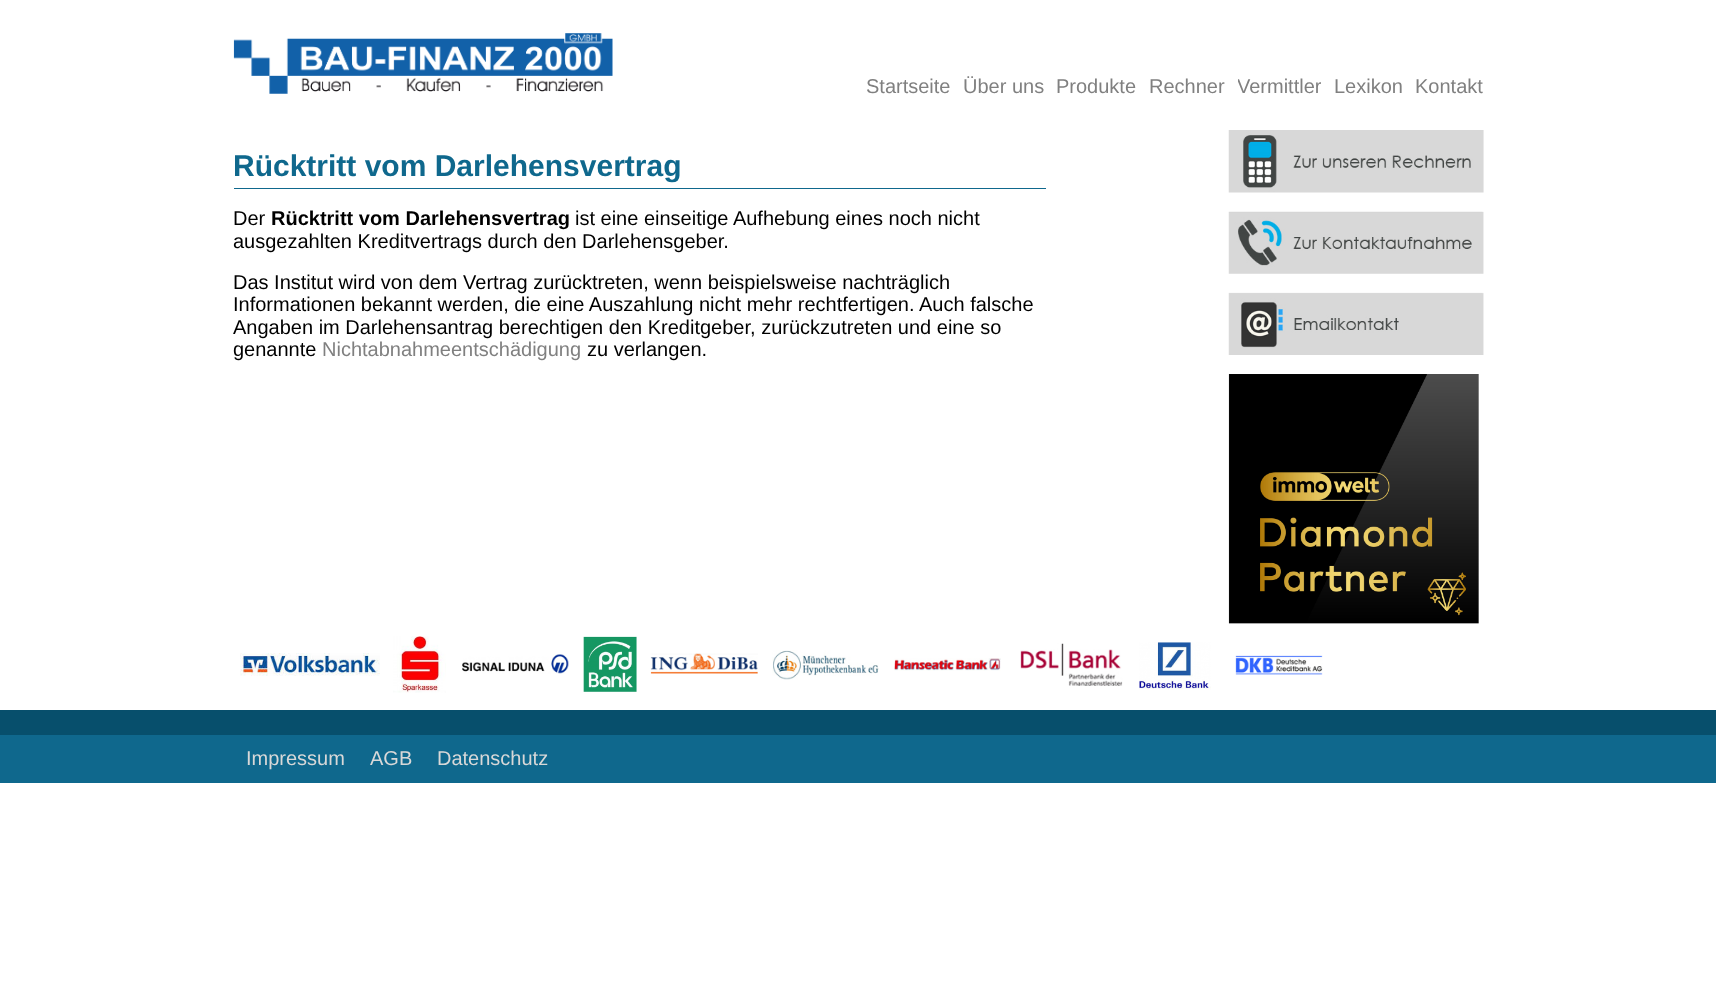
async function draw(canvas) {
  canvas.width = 1716
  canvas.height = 993
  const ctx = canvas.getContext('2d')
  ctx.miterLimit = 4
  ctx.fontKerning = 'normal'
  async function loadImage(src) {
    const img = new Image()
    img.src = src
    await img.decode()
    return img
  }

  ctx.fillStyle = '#fff'
  ctx.fillRect(0, 0, 1716, 993)
  ctx.drawImage(await loadImage('image0.png'), 233, 33, 380, 61)
  ctx.font = '20px Liberation Sans'
  ctx.fillStyle = '#808080'
  ctx.fillText('Startseite', 866, 93)
  ctx.fillText('Über uns', 963, 93)
  ctx.fillText('Produkte', 1056, 93)
  ctx.fillText('Rechner', 1149, 93)
  ctx.save()
  ctx.beginPath()
  ctx.rect(1238, 75, 83, 23)
  ctx.clip()
  ctx.fillText('Vermittler', 1237, 93)
  ctx.restore()
  ctx.fillText('Lexikon', 1334, 93)
  ctx.fillText('Kontakt', 1415, 93)
  ctx.fillStyle = '#0f688d'
  ctx.fillRect(234, 188, 812, 1)
  ctx.font = 'bold 30px Liberation Sans'
  ctx.fillText('Rücktritt vom Darlehensvertrag', 233, 176)
  ctx.font = '20px Liberation Sans'
  ctx.fillStyle = '#000'
  ctx.fillText('Der', 233, 225)
  ctx.font = 'bold 20px Liberation Sans'
  ctx.fillText('Rücktritt vom Darlehensvertrag', 271, 225)
  ctx.font = '20px Liberation Sans'
  ctx.fillText('ist eine einseitige Aufhebung eines noch nicht', 575, 225)
  ctx.fillText('ausgezahlten Kreditvertrags durch den Darlehensgeber.', 233, 248)
  ctx.fillText('Das Institut wird von dem Vertrag zurücktreten, wenn beispielsweise nachträglich', 233, 289)
  ctx.fillText('Informationen bekannt werden, die eine Auszahlung nicht mehr rechtfertigen. Auch falsche', 233, 311)
  ctx.fillText('Angaben im Darlehensantrag berechtigen den Kreditgeber, zurückzutreten und eine so', 233, 334)
  ctx.fillText('genannte', 233, 356)
  ctx.fillStyle = '#808080'
  ctx.fillText('Nichtabnahmeentschädigung', 322, 356)
  ctx.fillStyle = '#000'
  ctx.fillText('zu verlangen.', 587, 356)
  ctx.drawImage(await loadImage('image1.png'), 1228, 130, 256, 63)
  ctx.drawImage(await loadImage('image2.png'), 1228, 211, 256, 63)
  ctx.drawImage(await loadImage('image3.png'), 1228, 292, 256, 63)
  ctx.drawImage(await loadImage('image4.png'), 1228, 374, 251, 250)
  ctx.drawImage(await loadImage('image5.png'), 240, 653, 140, 23)
  ctx.drawImage(await loadImage('image6.png'), 393, 636, 53, 57)
  ctx.drawImage(await loadImage('image7.png'), 462, 654, 107, 20)
  ctx.drawImage(await loadImage('image8.png'), 583, 636, 54, 56)
  ctx.drawImage(await loadImage('image9.png'), 650, 653, 108, 21)
  ctx.drawImage(await loadImage('image10.png'), 772, 650, 107, 30)
  ctx.drawImage(await loadImage('image11.png'), 894, 658, 107, 13)
  ctx.drawImage(await loadImage('image12.png'), 1020, 643, 103, 43)
  ctx.drawImage(await loadImage('image13.png'), 1139, 642, 72, 48)
  ctx.drawImage(await loadImage('image14.png'), 1235, 655, 88, 20)
  ctx.fillStyle = '#0f688d'
  ctx.fillRect(0, 735, 1716, 48)
  ctx.fillStyle = '#074f6c'
  ctx.fillRect(0, 710, 1716, 25)
  ctx.fillStyle = '#d8d8d8'
  ctx.fillText('Impressum', 246, 765)
  ctx.fillText('AGB', 370, 765)
  ctx.fillText('Datenschutz', 437, 765)
}

draw(document.querySelector('canvas'))
